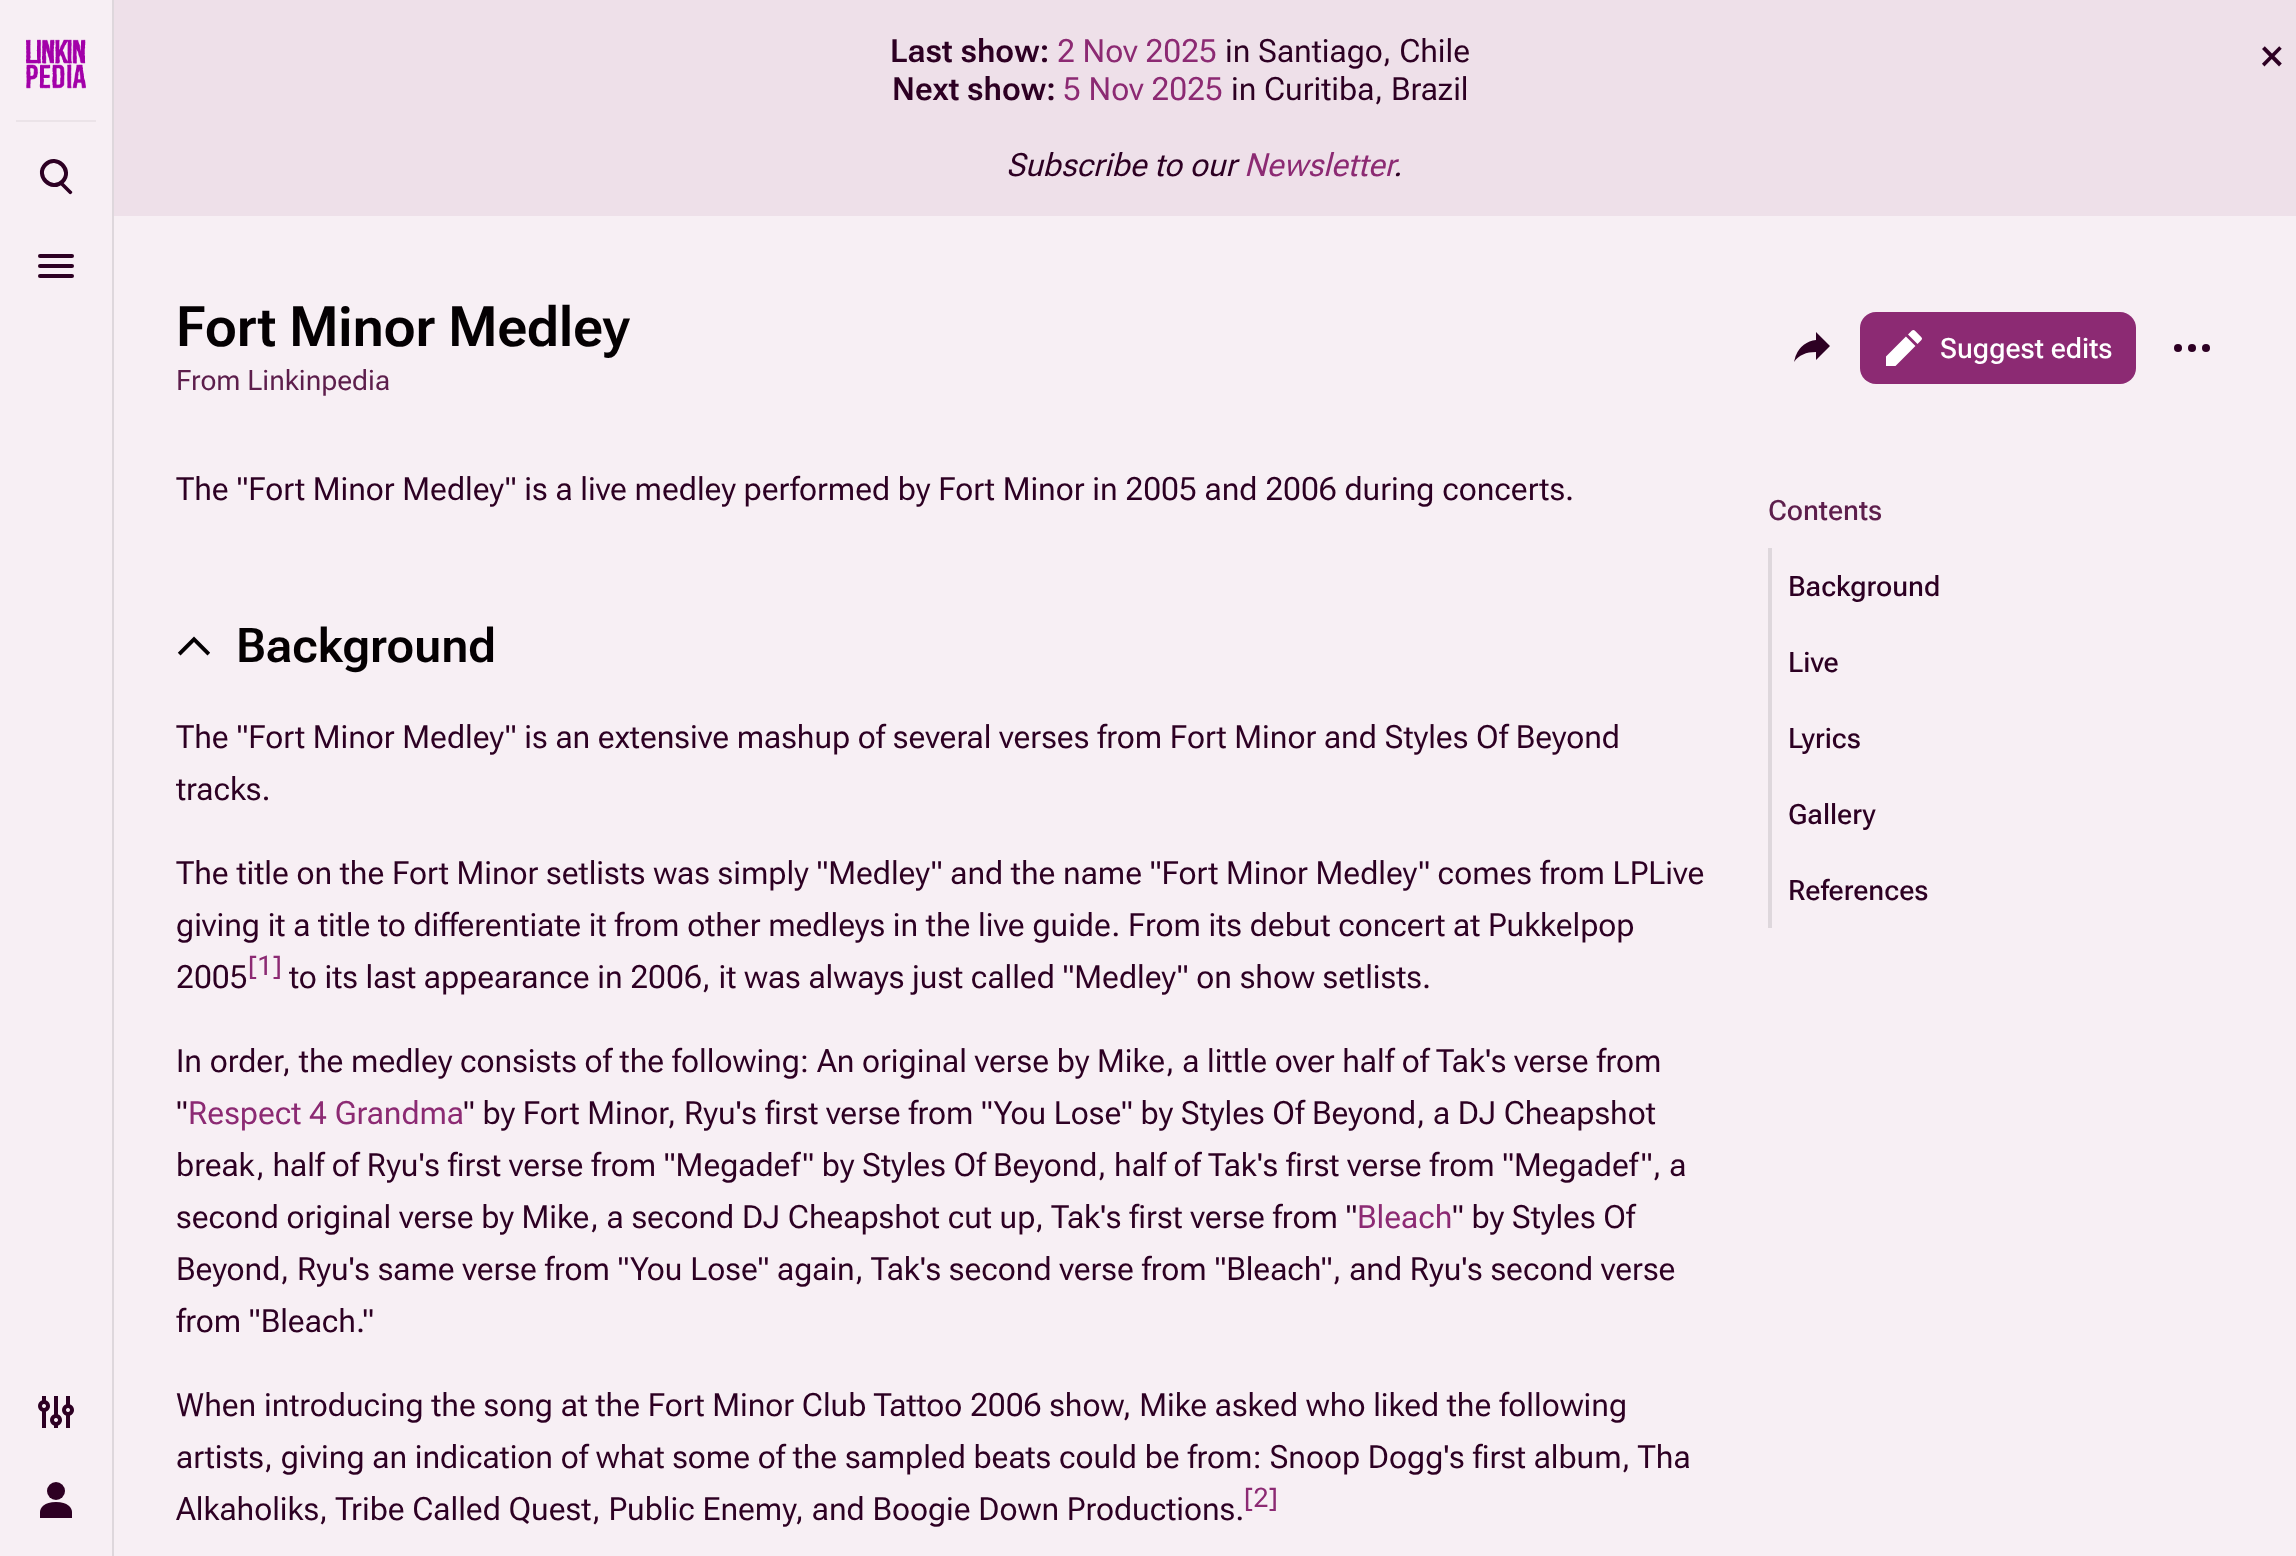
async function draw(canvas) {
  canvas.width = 2296
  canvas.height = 1556
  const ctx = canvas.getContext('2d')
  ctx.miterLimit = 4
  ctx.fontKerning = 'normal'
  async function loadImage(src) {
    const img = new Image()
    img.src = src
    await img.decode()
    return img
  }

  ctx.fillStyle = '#f7eff4'
  ctx.fillRect(0, 0, 2296, 1556)
  ctx.fillStyle = '#ded7dc'
  ctx.fillRect(112, 0, 2, 1556)
  ctx.fillStyle = '#ebe3e8'
  ctx.fillRect(16, 120, 80, 2)
  ctx.drawImage(await loadImage('image0.png'), 26, 39, 60, 50)
  ctx.fillStyle = '#2d0023'
  ctx.beginPath()
  ctx.moveTo(60.5, 182.5)
  ctx.bezierCurveTo(61, 181.5, 62.5, 181.5, 63, 182.5)
  ctx.lineTo(71.5, 191)
  ctx.bezierCurveTo(72.5, 191.5, 72.5, 193, 71.5, 193.5)
  ctx.bezierCurveTo(71, 194.5, 69.5, 194.5, 69, 193.5)
  ctx.lineTo(60.5, 185)
  ctx.bezierCurveTo(59.5, 184.5, 59.5, 183, 60.5, 182.5)
  ctx.closePath()
  ctx.fill()
  ctx.beginPath()
  ctx.moveTo(45.5, 164.5)
  ctx.bezierCurveTo(56.5, 153.5, 73.5, 170.5, 62.5, 181.5)
  ctx.bezierCurveTo(51.5, 192.5, 34.5, 175.5, 45.5, 164.5)
  ctx.closePath()
  ctx.strokeStyle = '#2d0023'
  ctx.lineWidth = 4
  ctx.stroke()
  ctx.beginPath()
  ctx.roundRect(38, 254, 36, 4, 2)
  ctx.fill()
  ctx.beginPath()
  ctx.roundRect(38, 264, 36, 4, 2)
  ctx.fill()
  ctx.beginPath()
  ctx.roundRect(38, 274, 36, 4, 2)
  ctx.fill()
  ctx.drawImage(await loadImage('image1.png'), 38, 1396, 36, 32)
  ctx.drawImage(await loadImage('image2.png'), 40, 1482, 32, 36)
  ctx.fillStyle = '#eee0e9'
  ctx.fillRect(114, 0, 2182, 216)
  ctx.font = '600 32px Roboto Flex'
  ctx.fillStyle = '#2d0023'
  ctx.fillText('Last show:', 890, 62)
  ctx.font = '32px "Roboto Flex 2"'
  ctx.fillStyle = '#8c2a73'
  ctx.fillText('2 Nov 2025', 1057, 62)
  ctx.fillStyle = '#2d0023'
  ctx.fillText('in Santiago, Chile', 1225, 62)
  ctx.font = '600 32px Roboto Flex'
  ctx.fillText('Next show:', 892, 100)
  ctx.font = '32px "Roboto Flex 2"'
  ctx.fillStyle = '#8c2a73'
  ctx.fillText('5 Nov 2025', 1063, 100)
  ctx.fillStyle = '#2d0023'
  ctx.fillText('in Curitiba, Brazil', 1231, 100)
  ctx.font = 'italic 32px Roboto Flex'
  ctx.fillText('Subscribe to our', 1006, 176)
  ctx.fillStyle = '#8c2a73'
  ctx.fillText('Newsletter', 1244, 176)
  ctx.fillStyle = '#2d0023'
  ctx.fillText('.', 1393, 176)
  ctx.font = '48px Roboto Flex'
  ctx.fillText('×', 2260, 72)
  ctx.font = '600 56px "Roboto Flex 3"'
  ctx.fillStyle = '#040002'
  ctx.fillText('Fort Minor Medley', 176, 346)
  ctx.font = '28px Roboto Flex'
  ctx.fillStyle = '#5d1e4c'
  ctx.fillText('From Linkinpedia', 176, 390)
  ctx.drawImage(await loadImage('image3.png'), 1794, 332, 36, 30)
  ctx.fillStyle = '#8c2a73'
  ctx.beginPath()
  ctx.roundRect(1860, 312, 276, 72, 16)
  ctx.fill()
  ctx.drawImage(await loadImage('image4.png'), 1886, 330, 36, 36)
  ctx.font = '500 28px Roboto Flex'
  ctx.fillStyle = '#fff'
  ctx.fillText('Suggest edits', 1940, 358)
  ctx.drawImage(await loadImage('image5.png'), 2174, 344, 36, 8)
  ctx.font = '32px "Roboto Flex 2"'
  ctx.fillStyle = '#2d0023'
  ctx.fillText('The "Fort Minor Medley" is a live medley performed by Fort Minor in 2005 and 2006 during concerts.', 176, 500)
  ctx.drawImage(await loadImage('image6.png'), 177, 636, 33, 20)
  ctx.font = '600 48px "Roboto Flex 2"'
  ctx.fillStyle = '#040002'
  ctx.fillText('Background', 236, 662)
  ctx.font = '32px "Roboto Flex 2"'
  ctx.fillStyle = '#2d0023'
  ctx.fillText('The "Fort Minor Medley" is an extensive mashup of several verses from Fort Minor and Styles Of Beyond', 176, 748)
  ctx.fillText('tracks.', 176, 800)
  ctx.fillText('The title on the Fort Minor setlists was simply "Medley" and the name "Fort Minor Medley" comes from LPLive', 176, 884)
  ctx.fillText('giving it a title to differentiate it from other medleys in the live guide. From its debut concert at Pukkelpop', 176, 936)
  ctx.fillText('2005', 176, 988)
  ctx.font = '27px Roboto Flex'
  ctx.fillStyle = '#8c2a73'
  ctx.fillText('[1]', 248, 975)
  ctx.font = '32px "Roboto Flex 2"'
  ctx.fillStyle = '#2d0023'
  ctx.fillText('to its last appearance in 2006, it was always just called "Medley" on show setlists.', 289, 988)
  ctx.fillText('In order, the medley consists of the following: An original verse by Mike, a little over half of Tak\'s verse from', 176, 1072)
  ctx.fillText('"', 176, 1124)
  ctx.fillStyle = '#8c2a73'
  ctx.fillText('Respect 4 Grandma', 188, 1124)
  ctx.fillStyle = '#2d0023'
  ctx.fillText('" by Fort Minor, Ryu\'s first verse from "You Lose" by Styles Of Beyond, a DJ Cheapshot', 463, 1124)
  ctx.fillText('break, half of Ryu\'s first verse from "Megadef" by Styles Of Beyond, half of Tak\'s first verse from "Megadef", a', 176, 1176)
  ctx.fillText('second original verse by Mike, a second DJ Cheapshot cut up, Tak\'s first verse from "', 176, 1228)
  ctx.fillStyle = '#8c2a73'
  ctx.fillText('Bleach', 1357, 1228)
  ctx.fillStyle = '#2d0023'
  ctx.fillText('" by Styles Of', 1452, 1228)
  ctx.fillText('Beyond, Ryu\'s same verse from "You Lose" again, Tak\'s second verse from "Bleach", and Ryu\'s second verse', 176, 1280)
  ctx.fillText('from "Bleach."', 176, 1332)
  ctx.fillText('When introducing the song at the Fort Minor Club Tattoo 2006 show, Mike asked who liked the following', 176, 1416)
  ctx.fillText('artists, giving an indication of what some of the sampled beats could be from: Snoop Dogg\'s first album, Tha', 176, 1468)
  ctx.fillText('Alkaholiks, Tribe Called Quest, Public Enemy, and Boogie Down Productions.', 176, 1520)
  ctx.font = '27px Roboto Flex'
  ctx.fillStyle = '#8c2a73'
  ctx.fillText('[2]', 1244, 1507)
  ctx.font = '500 28px Roboto Flex'
  ctx.fillStyle = '#5d1e4c'
  ctx.fillText('Contents', 1768, 520)
  ctx.fillStyle = '#ded7dc'
  ctx.fillRect(1768, 548, 4, 380)
  ctx.fillStyle = '#2d0023'
  ctx.fillText('Background', 1788, 596)
  ctx.fillText('Live', 1788, 672)
  ctx.fillText('Lyrics', 1788, 748)
  ctx.fillText('Gallery', 1788, 824)
  ctx.fillText('References', 1788, 900)
}

draw(document.querySelector('canvas'))
